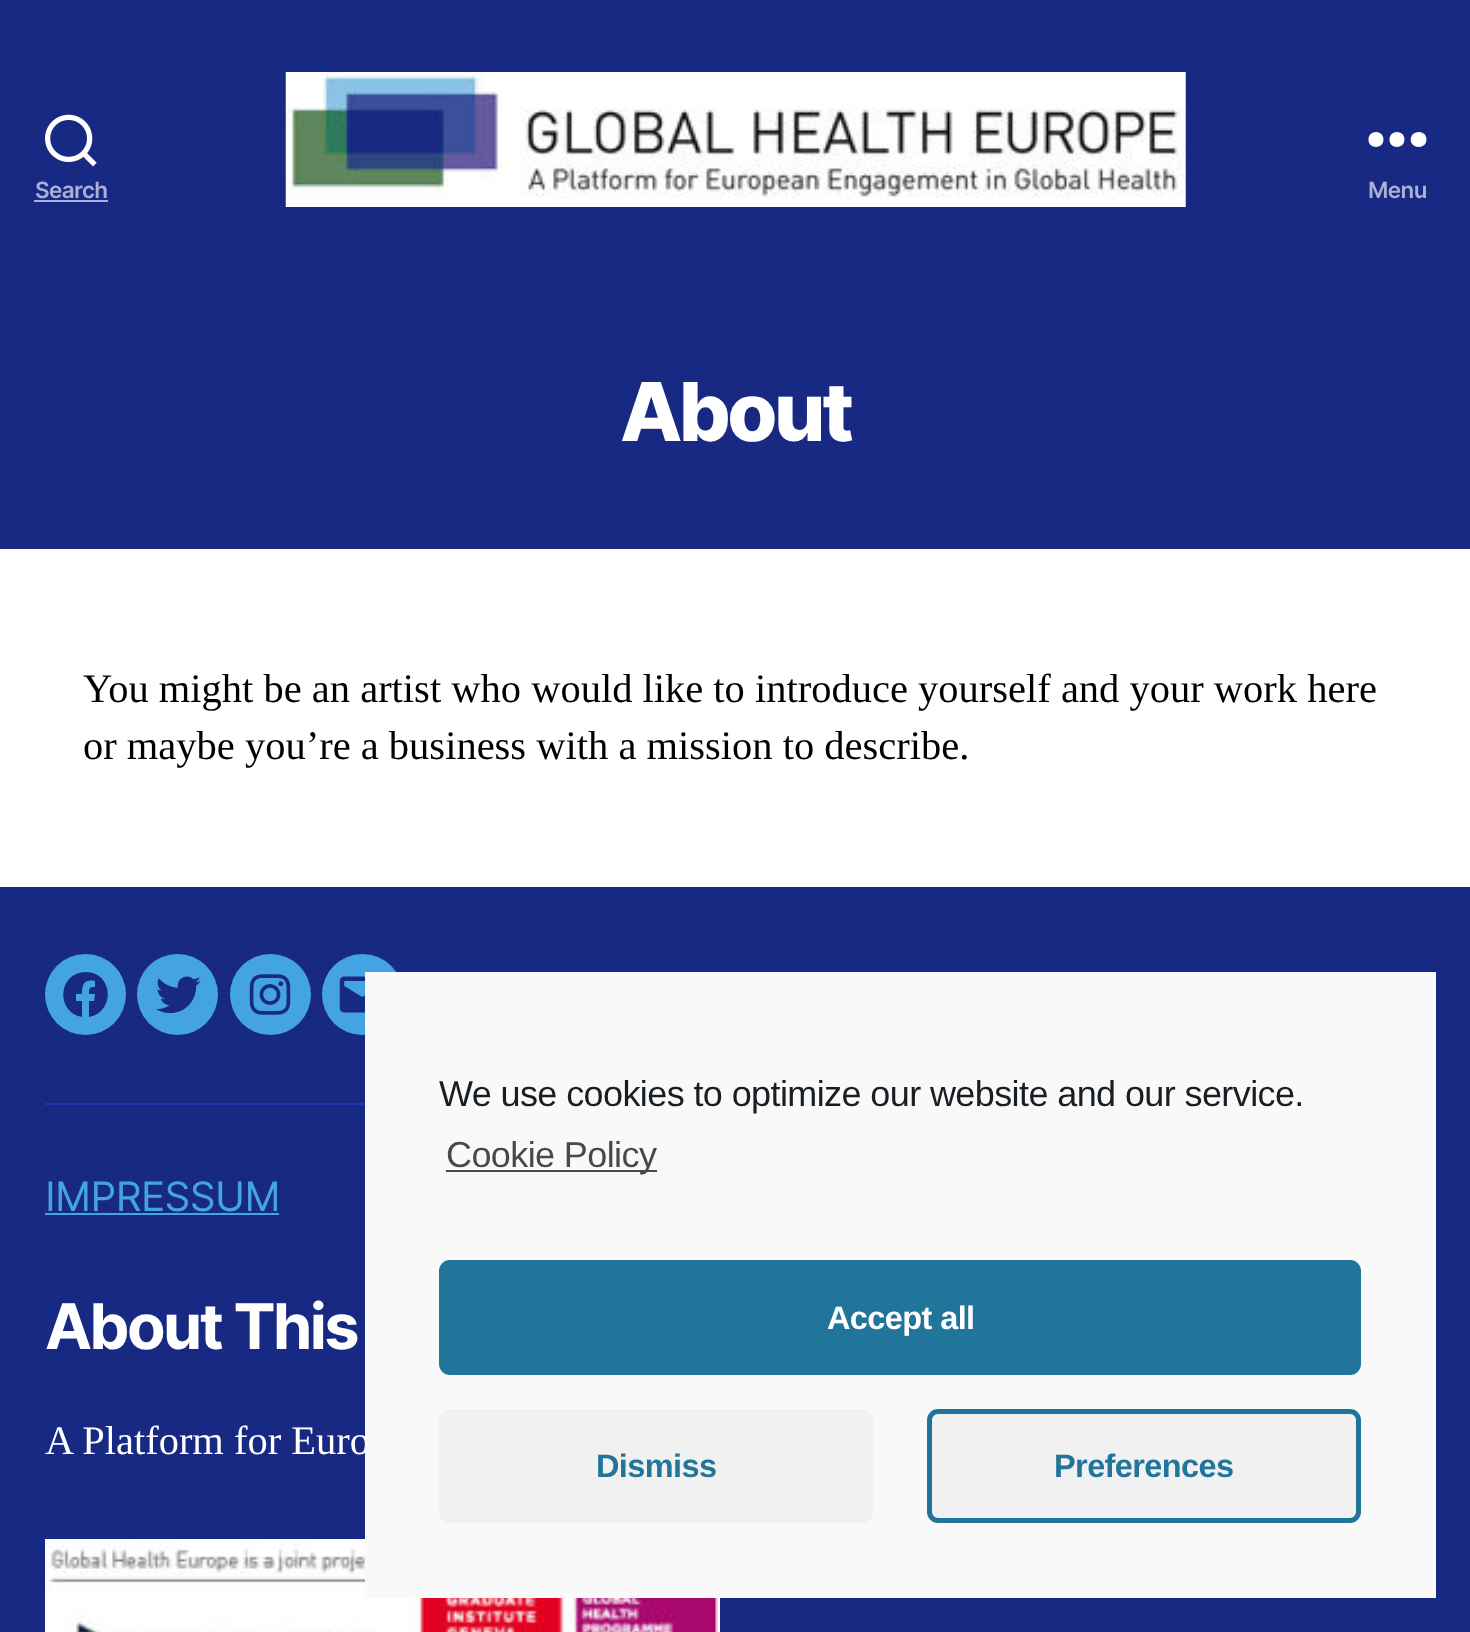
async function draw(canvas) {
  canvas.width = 1470
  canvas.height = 1632
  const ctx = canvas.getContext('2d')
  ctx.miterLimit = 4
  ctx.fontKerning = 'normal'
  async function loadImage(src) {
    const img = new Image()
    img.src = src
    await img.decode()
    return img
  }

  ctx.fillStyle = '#fff'
  ctx.fillRect(0, 0, 1470, 1632)
  ctx.fillStyle = '#182983'
  ctx.fillRect(0, 0, 1470, 549)
  ctx.drawImage(await loadImage('image0.png'), 45, 114, 52, 53)
  ctx.letterSpacing = '-0.6px'
  ctx.font = '600 22.5px Inter'
  ctx.fillStyle = '#a9b0d5'
  ctx.fillText('Search', 35, 198)
  ctx.fillRect(34, 200, 74, 2)
  ctx.drawImage(await loadImage('image1.png'), 285, 72, 901, 135)
  ctx.fillStyle = '#fff'
  ctx.beginPath()
  ctx.moveTo(1376, 147)
  ctx.bezierCurveTo(1366, 147, 1366, 132, 1376, 132)
  ctx.bezierCurveTo(1386, 132, 1386, 147, 1376, 147)
  ctx.closePath()
  ctx.moveTo(1397, 147)
  ctx.bezierCurveTo(1387, 147, 1387, 132, 1397, 132)
  ctx.bezierCurveTo(1407, 132, 1407, 147, 1397, 147)
  ctx.closePath()
  ctx.moveTo(1419, 147)
  ctx.bezierCurveTo(1408, 147, 1408, 132, 1419, 132)
  ctx.bezierCurveTo(1429, 132, 1429, 147, 1419, 147)
  ctx.closePath()
  ctx.fill('evenodd')
  ctx.fillStyle = '#a9b0d5'
  ctx.fillText('Menu', 1368, 198)
  ctx.letterSpacing = '-3.5px'
  ctx.font = '800 81px Inter'
  ctx.fillStyle = '#fff'
  ctx.fillText('About', 620, 441)
  ctx.letterSpacing = '0px'
  ctx.font = '40.5px Liberation Serif'
  ctx.fillStyle = '#000'
  ctx.fillText('You might be an artist who would like to introduce yourself and your work here', 83, 702)
  ctx.fillText('or maybe you’re a business with a mission to describe.', 83, 759)
  ctx.fillStyle = '#182983'
  ctx.fillRect(0, 887, 1470, 745)
  ctx.fillStyle = '#1d37b8'
  ctx.fillRect(45, 1103, 320, 2)
  ctx.fillStyle = '#44a3e3'
  ctx.beginPath()
  ctx.arc(85.5, 994.5, 40.5, 0, 2 * Math.PI)
  ctx.fill()
  ctx.fillStyle = '#182983'
  ctx.beginPath()
  ctx.moveTo(86, 972)
  ctx.bezierCurveTo(58, 972, 55, 1012, 82, 1017)
  ctx.lineTo(82, 1001)
  ctx.lineTo(76, 1001)
  ctx.lineTo(76, 994)
  ctx.lineTo(82, 994)
  ctx.bezierCurveTo(82, 984, 84, 979, 95, 981)
  ctx.lineTo(95, 987)
  ctx.bezierCurveTo(89, 987, 89, 988, 89, 994)
  ctx.lineTo(95, 994)
  ctx.lineTo(94, 1001)
  ctx.lineTo(89, 1001)
  ctx.lineTo(89, 1017)
  ctx.bezierCurveTo(116, 1012, 113, 972, 86, 972)
  ctx.closePath()
  ctx.fill()
  ctx.fillStyle = '#44a3e3'
  ctx.beginPath()
  ctx.arc(177.5, 994.5, 40.5, 0, 2 * Math.PI)
  ctx.fill()
  ctx.drawImage(await loadImage('image2.png'), 156, 976, 45, 38)
  ctx.beginPath()
  ctx.arc(270.5, 994.5, 40.5, 0, 2 * Math.PI)
  ctx.fill()
  ctx.drawImage(await loadImage('image3.png'), 249, 974, 42, 41)
  ctx.beginPath()
  ctx.arc(362.5, 994.5, 40.5, 0, 2 * Math.PI)
  ctx.fill()
  ctx.drawImage(await loadImage('image4.png'), 339, 976, 26, 37)
  ctx.letterSpacing = '-0.6px'
  ctx.font = '40.5px Inter'
  ctx.fillText('IMPRESSUM', 45, 1211)
  ctx.fillRect(45, 1213, 234, 2)
  ctx.letterSpacing = '-2.6px'
  ctx.font = 'bold 63px Inter'
  ctx.fillStyle = '#fff'
  ctx.fillText('About This', 45, 1349)
  ctx.letterSpacing = '0px'
  ctx.font = '40.5px Liberation Serif'
  ctx.fillText('A Platform for Euro', 45, 1454)
  ctx.drawImage(await loadImage('image5.png'), 45, 1539, 675, 93)
  ctx.fillStyle = '#f9f9f9'
  ctx.fillRect(365, 972, 1071, 626)
  ctx.letterSpacing = '-0.6px'
  ctx.font = '36px Liberation Sans'
  ctx.fillStyle = '#191e23'
  ctx.fillText('We use cookies to optimize our website and our service.', 439, 1106)
  ctx.fillStyle = '#464a4e'
  ctx.fillRect(446, 1170, 211, 2)
  ctx.fillText('Cookie Policy', 446, 1167)
  ctx.fillStyle = '#21759b'
  ctx.beginPath()
  ctx.roundRect(441.5, 1262.5, 917, 110, 8.5)
  ctx.fill()
  ctx.strokeStyle = '#21759b'
  ctx.lineWidth = 5
  ctx.stroke()
  ctx.font = 'bold 32.5px Liberation Sans'
  ctx.fillStyle = '#fff'
  ctx.fillText('Accept all', 827, 1329)
  ctx.fillStyle = '#f1f1f1'
  ctx.beginPath()
  ctx.roundRect(439, 1409, 434, 114, 11)
  ctx.fill()
  ctx.fillStyle = '#21759b'
  ctx.fillText('Dismiss', 596, 1477)
  ctx.fillStyle = '#f1f1f1'
  ctx.beginPath()
  ctx.roundRect(929.5, 1411.5, 429, 109, 8.5)
  ctx.fill()
  ctx.stroke()
  ctx.fillStyle = '#21759b'
  ctx.fillText('Preferences', 1054, 1477)
}

draw(document.querySelector('canvas'))
